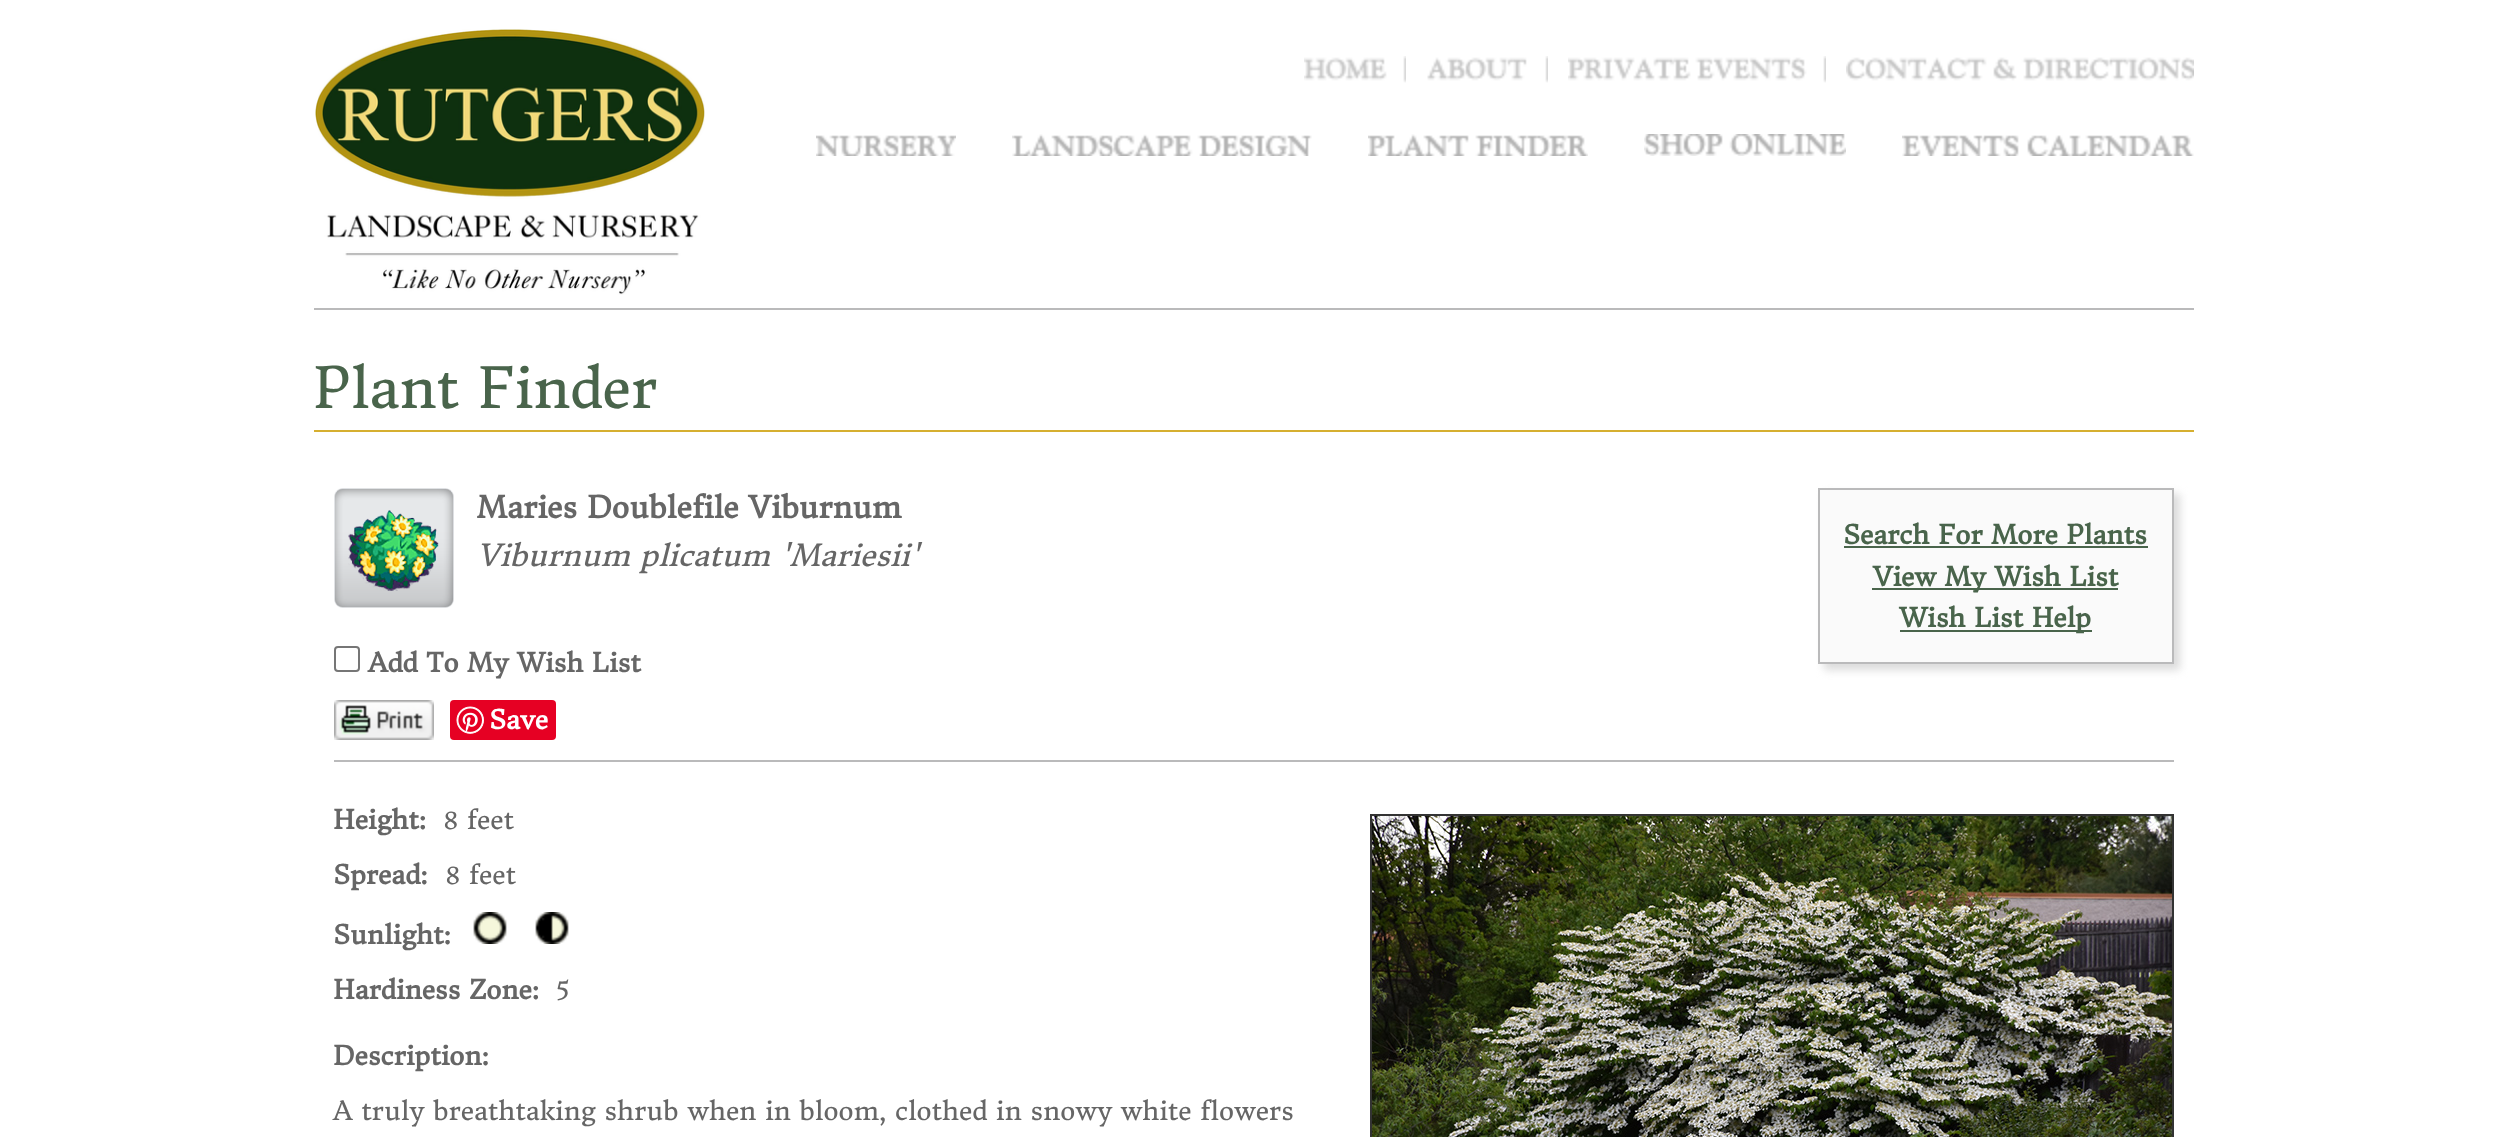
async function draw(canvas) {
  canvas.width = 2506
  canvas.height = 1137
  const ctx = canvas.getContext('2d')
  ctx.miterLimit = 4
  ctx.fontKerning = 'normal'
  async function loadImage(src) {
    const img = new Image()
    img.src = src
    await img.decode()
    return img
  }

  ctx.fillStyle = '#fff'
  ctx.fillRect(0, 0, 2506, 1137)
  ctx.fillStyle = '#bababb'
  ctx.fillRect(314, 308, 1880, 2)
  ctx.drawImage(await loadImage('image0.png'), 315, 29, 390, 266)
  ctx.drawImage(await loadImage('image1.png'), 1304, 56, 102, 27)
  ctx.drawImage(await loadImage('image2.png'), 1427, 56, 121, 27)
  ctx.drawImage(await loadImage('image3.png'), 1568, 56, 258, 27)
  ctx.drawImage(await loadImage('image4.png'), 1846, 57, 348, 24)
  ctx.drawImage(await loadImage('image5.png'), 816, 135, 140, 21)
  ctx.drawImage(await loadImage('image6.png'), 1012, 134, 300, 22)
  ctx.drawImage(await loadImage('image7.png'), 1368, 134, 220, 22)
  ctx.drawImage(await loadImage('image8.png'), 1644, 134, 202, 22)
  ctx.drawImage(await loadImage('image9.png'), 1902, 135, 292, 21)
  ctx.fillStyle = '#d6af30'
  ctx.fillRect(314, 430, 1880, 2)
  ctx.font = '56px Donegal One'
  ctx.fillStyle = '#49644b'
  ctx.fillText('Plant Finder', 313, 408)
  ctx.drawImage(await loadImage('image10.png'), 334, 488, 120, 120)
  ctx.font = 'bold 30px Donegal One'
  ctx.fillStyle = '#666'
  ctx.fillText('Maries Doublefile Viburnum', 477, 518)
  ctx.font = 'italic 30px Donegal One'
  ctx.fillText('Viburnum plicatum \'Mariesii\'', 477, 566)
  ctx.fillStyle = '#dbdbdb'
  ctx.filter = 'blur(4px)'
  ctx.beginPath()
  ctx.rect(1824, 494, 356, 176)
  ctx.fill()
  ctx.filter = 'none'
  ctx.fillStyle = '#fafafa'
  ctx.beginPath()
  ctx.rect(1819, 489, 354, 174)
  ctx.fill()
  ctx.strokeStyle = '#bababb'
  ctx.lineWidth = 2
  ctx.stroke()
  ctx.font = 'bold 26px Donegal One'
  ctx.fillStyle = '#49644b'
  ctx.fillText('Search For More Plants', 1843, 544)
  ctx.fillRect(1844, 546, 304, 2)
  ctx.fillRect(1872, 588, 246, 2)
  ctx.fillText('View My Wish List', 1873, 586)
  ctx.fillRect(1900, 630, 192, 2)
  ctx.fillText('Wish List Help', 1899, 627)
  ctx.beginPath()
  ctx.roundRect(335, 647, 24, 24, 3)
  ctx.strokeStyle = '#767676'
  ctx.stroke()
  ctx.fillStyle = '#666'
  ctx.fillText('Add To My Wish List', 368, 672)
  ctx.drawImage(await loadImage('image11.png'), 334, 700, 100, 40)
  ctx.fillStyle = '#e60023'
  ctx.beginPath()
  ctx.roundRect(450, 700, 106, 40, 4)
  ctx.fill()
  ctx.drawImage(await loadImage('image12.png'), 456, 706, 28, 28)
  ctx.fillStyle = '#fff'
  ctx.fillText('Save', 489, 729)
  ctx.fillStyle = '#bababb'
  ctx.fillRect(334, 760, 1840, 2)
  ctx.fillStyle = '#666'
  ctx.fillText('Height:', 333, 829)
  ctx.font = '26px Donegal One'
  ctx.fillText('8 feet', 443, 829)
  ctx.font = 'bold 26px Donegal One'
  ctx.fillText('Spread:', 333, 884)
  ctx.font = '26px Donegal One'
  ctx.fillText('8 feet', 445, 884)
  ctx.font = 'bold 26px Donegal One'
  ctx.fillText('Sunlight:', 333, 944)
  ctx.drawImage(await loadImage('image13.png'), 473, 912, 34, 32)
  ctx.drawImage(await loadImage('image14.png'), 535, 912, 34, 32)
  ctx.fillText('Hardiness Zone:', 333, 999)
  ctx.font = '26px Donegal One'
  ctx.fillText('5', 556, 999)
  ctx.strokeStyle = '#333'
  ctx.strokeRect(1371, 815, 802, 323)
  ctx.drawImage(await loadImage('image15.png'), 1372, 816, 800, 321)
  ctx.font = 'bold 26px Donegal One'
  ctx.fillText('Description:', 333, 1065)
  ctx.font = '26px Donegal One'
  ctx.fillText('A truly breathtaking shrub when in bloom, clothed in snowy white flowers', 333, 1120)
}

draw(document.querySelector('canvas'))
